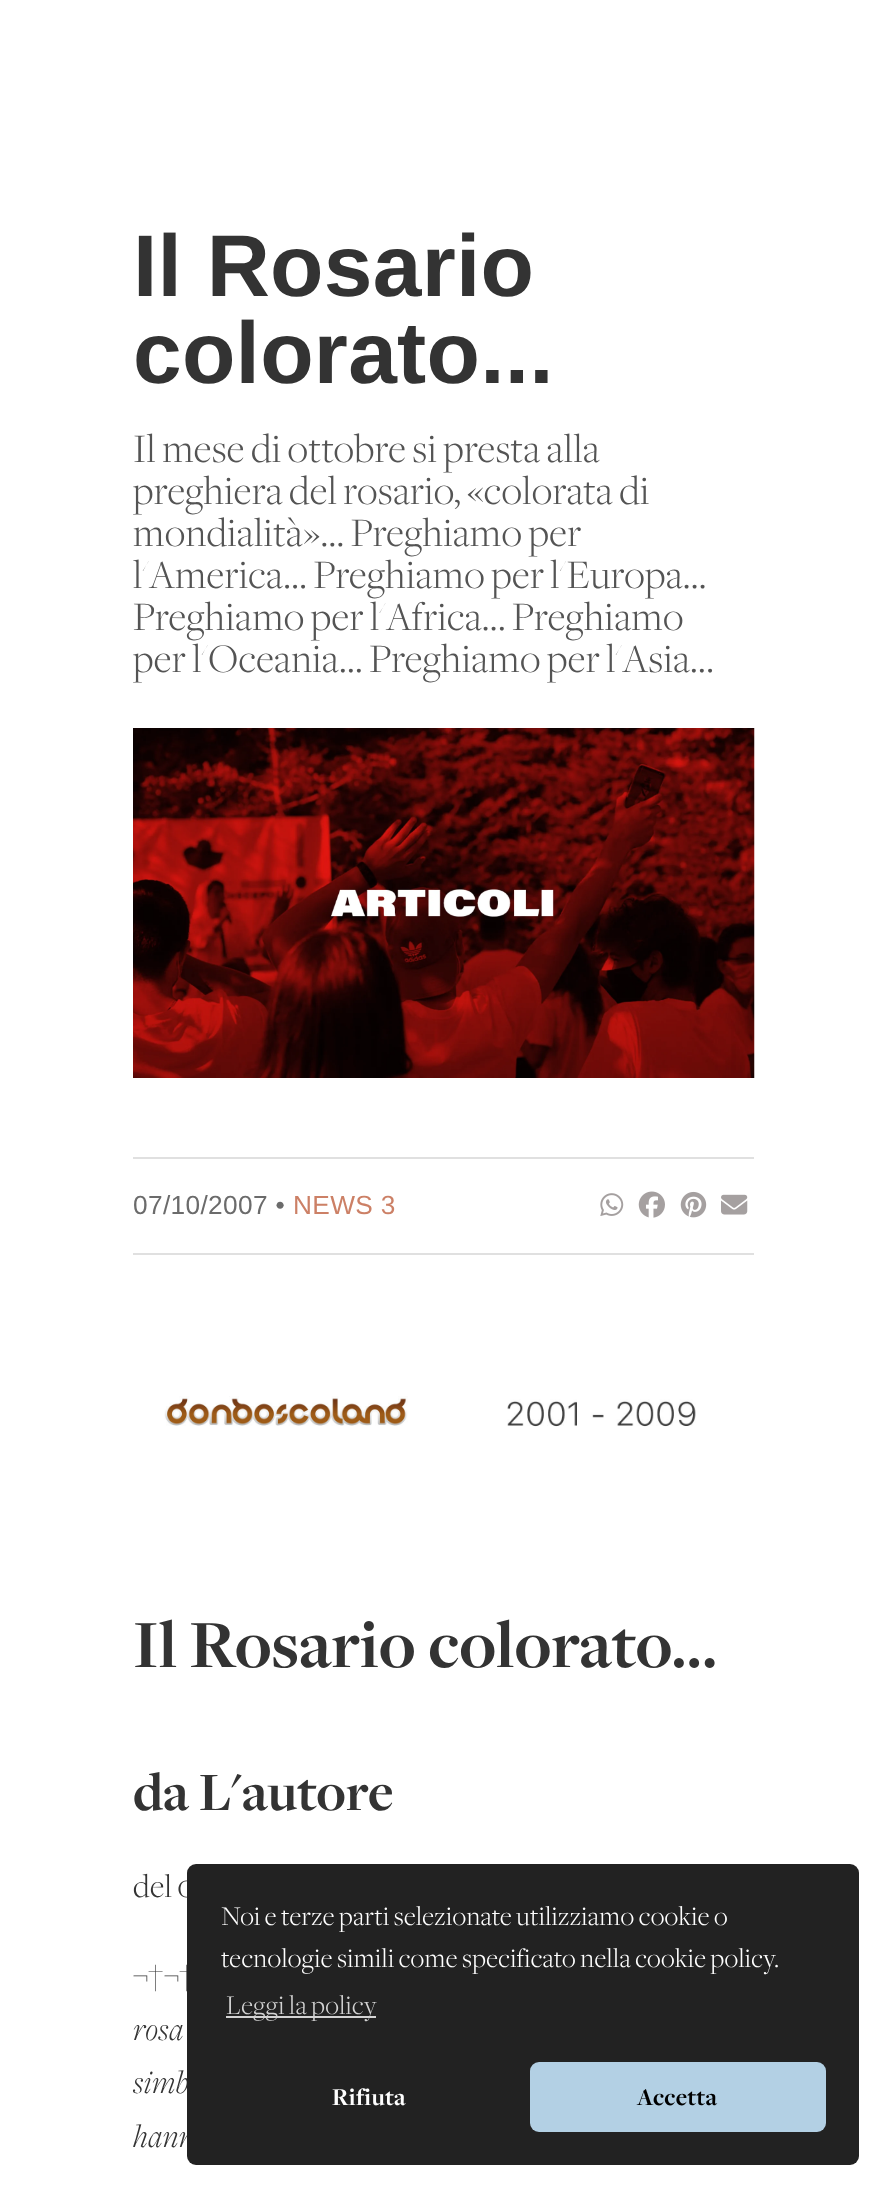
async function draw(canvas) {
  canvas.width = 887
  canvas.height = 2192
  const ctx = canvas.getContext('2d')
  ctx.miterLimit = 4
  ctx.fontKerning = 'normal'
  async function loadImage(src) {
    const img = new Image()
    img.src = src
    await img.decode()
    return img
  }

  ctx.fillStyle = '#fff'
  ctx.fillRect(0, 0, 887, 2192)
  ctx.letterSpacing = '0.25px'
  ctx.font = 'bold 87.5px Liberation Sans'
  ctx.fillStyle = '#333'
  ctx.fillText('Il Rosario', 133, 296)
  ctx.fillText('colorato...', 133, 383)
  ctx.letterSpacing = '0.35px'
  ctx.font = '300 42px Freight'
  ctx.fillStyle = '#545454'
  ctx.fillText('Il mese di ottobre si presta alla', 133, 462)
  ctx.fillText('preghiera del rosario, «colorata di', 133, 504)
  ctx.fillText('mondialità»... Preghiamo per', 133, 546)
  ctx.fillText('l\'America... Preghiamo per l\'Europa...', 133, 588)
  ctx.fillText('Preghiamo per l\'Africa... Preghiamo', 133, 630)
  ctx.fillText('per l\'Oceania... Preghiamo per l\'Asia...', 133, 672)
  ctx.drawImage(await loadImage('image0.png'), 133, 728, 622, 350)
  ctx.fillStyle = '#e0e0e0'
  ctx.fillRect(133, 1157, 621, 2)
  ctx.fillRect(133, 1253, 621, 2)
  ctx.font = '26.25px Liberation Sans'
  ctx.fillStyle = '#6b6b6b'
  ctx.fillText('07/10/2007 •', 133, 1214)
  ctx.fillStyle = '#cc8066'
  ctx.fillText('NEWS 3', 293, 1214)
  ctx.drawImage(await loadImage('image1.png'), 600, 1193, 24, 23)
  ctx.drawImage(await loadImage('image2.png'), 638, 1191, 27, 27)
  ctx.drawImage(await loadImage('image3.png'), 680, 1191, 27, 27)
  ctx.drawImage(await loadImage('image4.png'), 721, 1194, 27, 21)
  ctx.drawImage(await loadImage('image5.png'), 164, 1396, 532, 31)
  ctx.letterSpacing = '0px'
  ctx.font = 'bold 70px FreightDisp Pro'
  ctx.fillStyle = '#333'
  ctx.fillText('Il Rosario colorato...', 133, 1667)
  ctx.font = 'bold 56px FreightDisp Pro'
  ctx.fillText('da L\'autore', 133, 1810)
  ctx.letterSpacing = '0.35px'
  ctx.font = '300 34px Freight'
  ctx.fillText('del 0', 133, 1897)
  ctx.font = '34px FreightDisp Pro'
  ctx.fillText('¬', 133, 1986)
  ctx.font = '300 34px Freight'
  ctx.fillText('†', 148, 1986)
  ctx.font = '34px FreightDisp Pro'
  ctx.fillText('¬', 164, 1986)
  ctx.font = '300 34px Freight'
  ctx.fillText('†', 179, 1986)
  ctx.font = 'italic 300 34px Freight'
  ctx.fillText('rosa', 133, 2040)
  ctx.fillText('simb', 133, 2093)
  ctx.fillText('hann', 133, 2147)
  ctx.fillStyle = '#222'
  ctx.beginPath()
  ctx.roundRect(187, 1864, 672, 301, 9)
  ctx.fill()
  ctx.font = '300 28px Freight'
  ctx.fillStyle = '#fff'
  ctx.fillText('Noi e terze parti selezionate utilizziamo cookie o', 221, 1925)
  ctx.fillText('tecnologie simili come specificato nella cookie policy.', 221, 1967)
  ctx.fillStyle = '#d3d3d3'
  ctx.fillRect(226, 2016, 150, 2)
  ctx.fillText('Leggi la policy', 226, 2014)
  ctx.font = 'bold 25px FreightDisp Pro'
  ctx.fillStyle = '#fff'
  ctx.fillText('Rifiuta', 332, 2105)
  ctx.fillStyle = '#b3d0e4'
  ctx.beginPath()
  ctx.roundRect(530, 2062, 296, 70, 9)
  ctx.fill()
  ctx.fillStyle = '#000'
  ctx.fillText('Accetta', 637, 2105)
}

draw(document.querySelector('canvas'))
